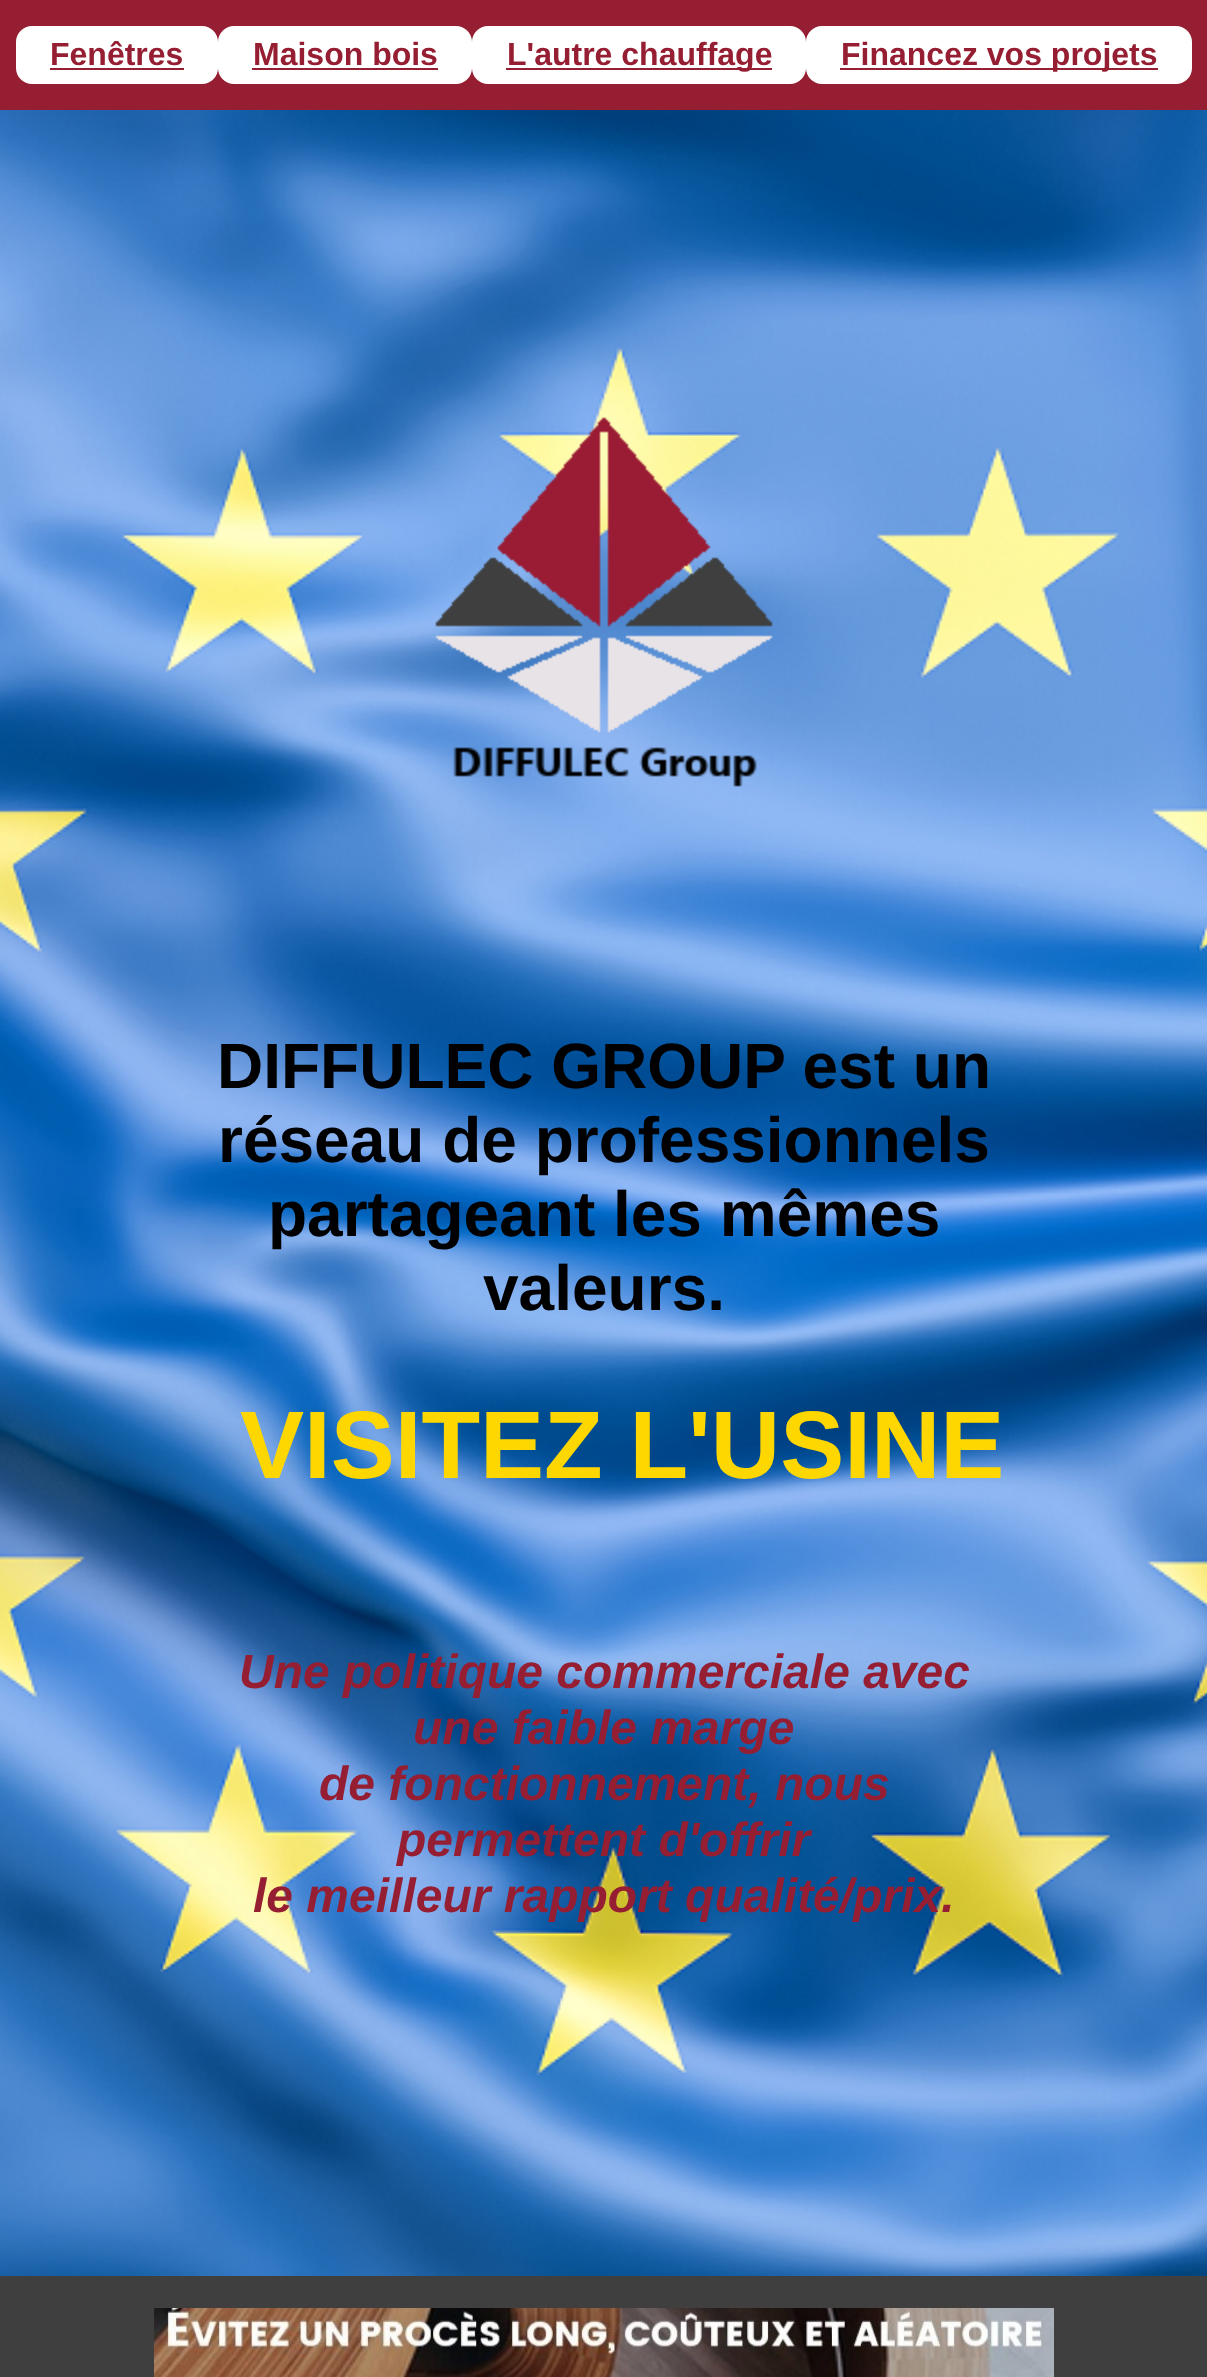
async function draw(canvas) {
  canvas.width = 1207
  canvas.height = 2377
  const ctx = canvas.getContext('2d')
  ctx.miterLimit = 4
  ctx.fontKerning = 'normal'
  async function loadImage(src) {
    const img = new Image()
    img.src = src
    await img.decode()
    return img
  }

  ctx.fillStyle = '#961e32'
  ctx.fillRect(0, 0, 1207, 2377)
  ctx.fillStyle = '#fff'
  ctx.beginPath()
  ctx.roundRect(17, 27, 200, 56, 15)
  ctx.fill()
  ctx.strokeStyle = '#fff'
  ctx.lineWidth = 2
  ctx.stroke()
  ctx.font = 'bold 32px Liberation Sans'
  ctx.fillStyle = '#961e32'
  ctx.fillText('Fenêtres', 50, 65)
  ctx.fillRect(50, 68, 134, 2)
  ctx.fillStyle = '#fff'
  ctx.beginPath()
  ctx.roundRect(219, 27, 252, 56, 15)
  ctx.fill()
  ctx.stroke()
  ctx.fillStyle = '#961e32'
  ctx.fillText('Maison bois', 253, 65)
  ctx.fillRect(252, 68, 186, 2)
  ctx.fillStyle = '#fff'
  ctx.beginPath()
  ctx.roundRect(473, 27, 332, 56, 15)
  ctx.fill()
  ctx.stroke()
  ctx.fillStyle = '#961e32'
  ctx.fillRect(506, 68, 266, 2)
  ctx.fillText('L\'autre chauffage', 507, 65)
  ctx.fillStyle = '#fff'
  ctx.beginPath()
  ctx.roundRect(807, 27, 384, 56, 15)
  ctx.fill()
  ctx.stroke()
  ctx.fillStyle = '#961e32'
  ctx.fillRect(840, 68, 318, 2)
  ctx.fillText('Financez vos projets', 841, 65)
  ctx.drawImage(await loadImage('image0.png'), 0, 110, 1207, 2166)
  ctx.drawImage(await loadImage('image1.png'), 435, 417, 338, 370)
  ctx.font = 'bold 64px Liberation Sans'
  ctx.fillStyle = '#000'
  ctx.fillText('DIFFULEC GROUP est un', 217, 1088)
  ctx.fillText('réseau de professionnels', 218, 1162)
  ctx.fillText('partageant les mêmes', 268, 1236)
  ctx.fillText('valeurs.', 483, 1310)
  ctx.font = 'bold 96px Liberation Sans'
  ctx.fillStyle = '#ffd700'
  ctx.fillText('VISITEZ L\'USINE', 240, 1478)
  ctx.font = 'italic bold 48px Liberation Sans'
  ctx.fillStyle = '#961e32'
  ctx.fillText('Une politique commerciale avec', 239, 1688)
  ctx.fillText('une faible marge', 413, 1744)
  ctx.fillText('de fonctionnement, nous', 319, 1800)
  ctx.fillText('permettent d\'offrir', 397, 1856)
  ctx.fillText('le meilleur rapport qualité/prix.', 253, 1912)
  ctx.fillStyle = '#3f3f3f'
  ctx.fillRect(0, 2276, 1207, 101)
  ctx.drawImage(await loadImage('image2.png'), 154, 2308, 900, 69)
}

draw(document.querySelector('canvas'))
